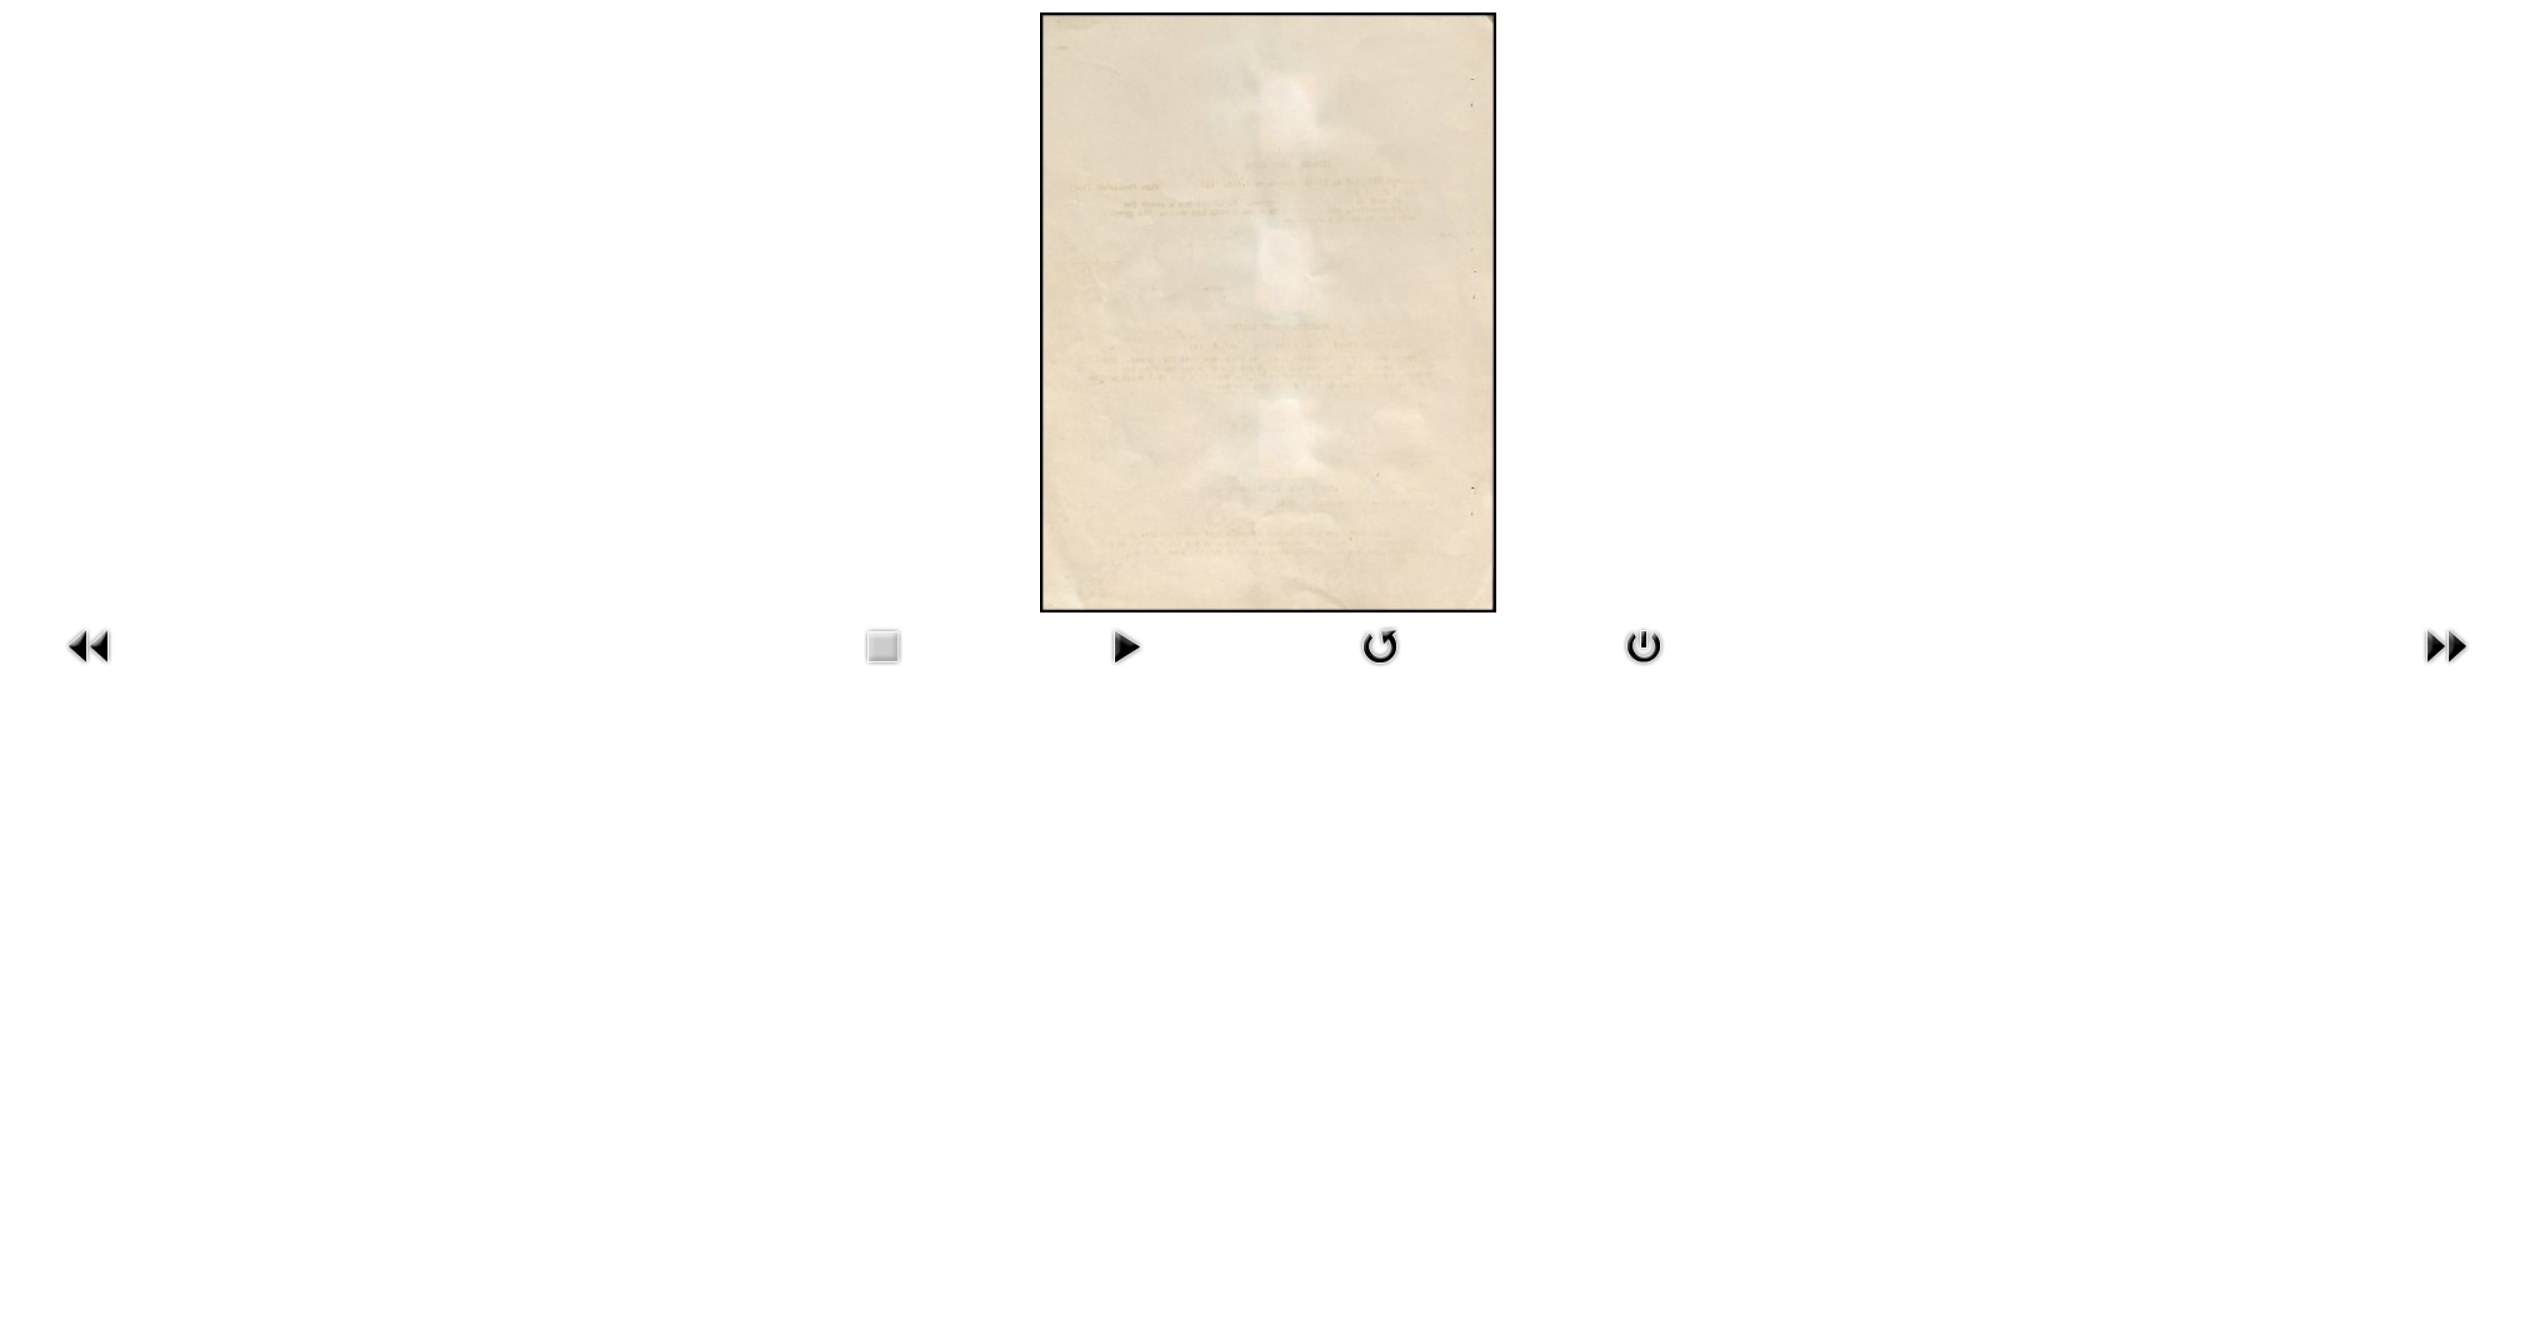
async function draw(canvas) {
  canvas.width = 2536
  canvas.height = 1344
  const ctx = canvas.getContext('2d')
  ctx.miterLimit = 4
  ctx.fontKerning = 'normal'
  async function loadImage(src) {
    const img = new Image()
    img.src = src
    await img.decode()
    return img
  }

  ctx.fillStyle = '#fff'
  ctx.fillRect(0, 0, 2536, 1344)
  ctx.drawImage(await loadImage('image0.png'), 1040, 12, 457, 601)
  ctx.drawImage(await loadImage('image1.png'), 65, 627, 48, 39)
  ctx.drawImage(await loadImage('image2.png'), 864, 627, 39, 39)
  ctx.drawImage(await loadImage('image3.png'), 1110, 627, 34, 39)
  ctx.drawImage(await loadImage('image4.png'), 1359, 626, 42, 42)
  ctx.drawImage(await loadImage('image5.png'), 1623, 627, 42, 40)
  ctx.drawImage(await loadImage('image6.png'), 2422, 627, 48, 39)
}

draw(document.querySelector('canvas'))
